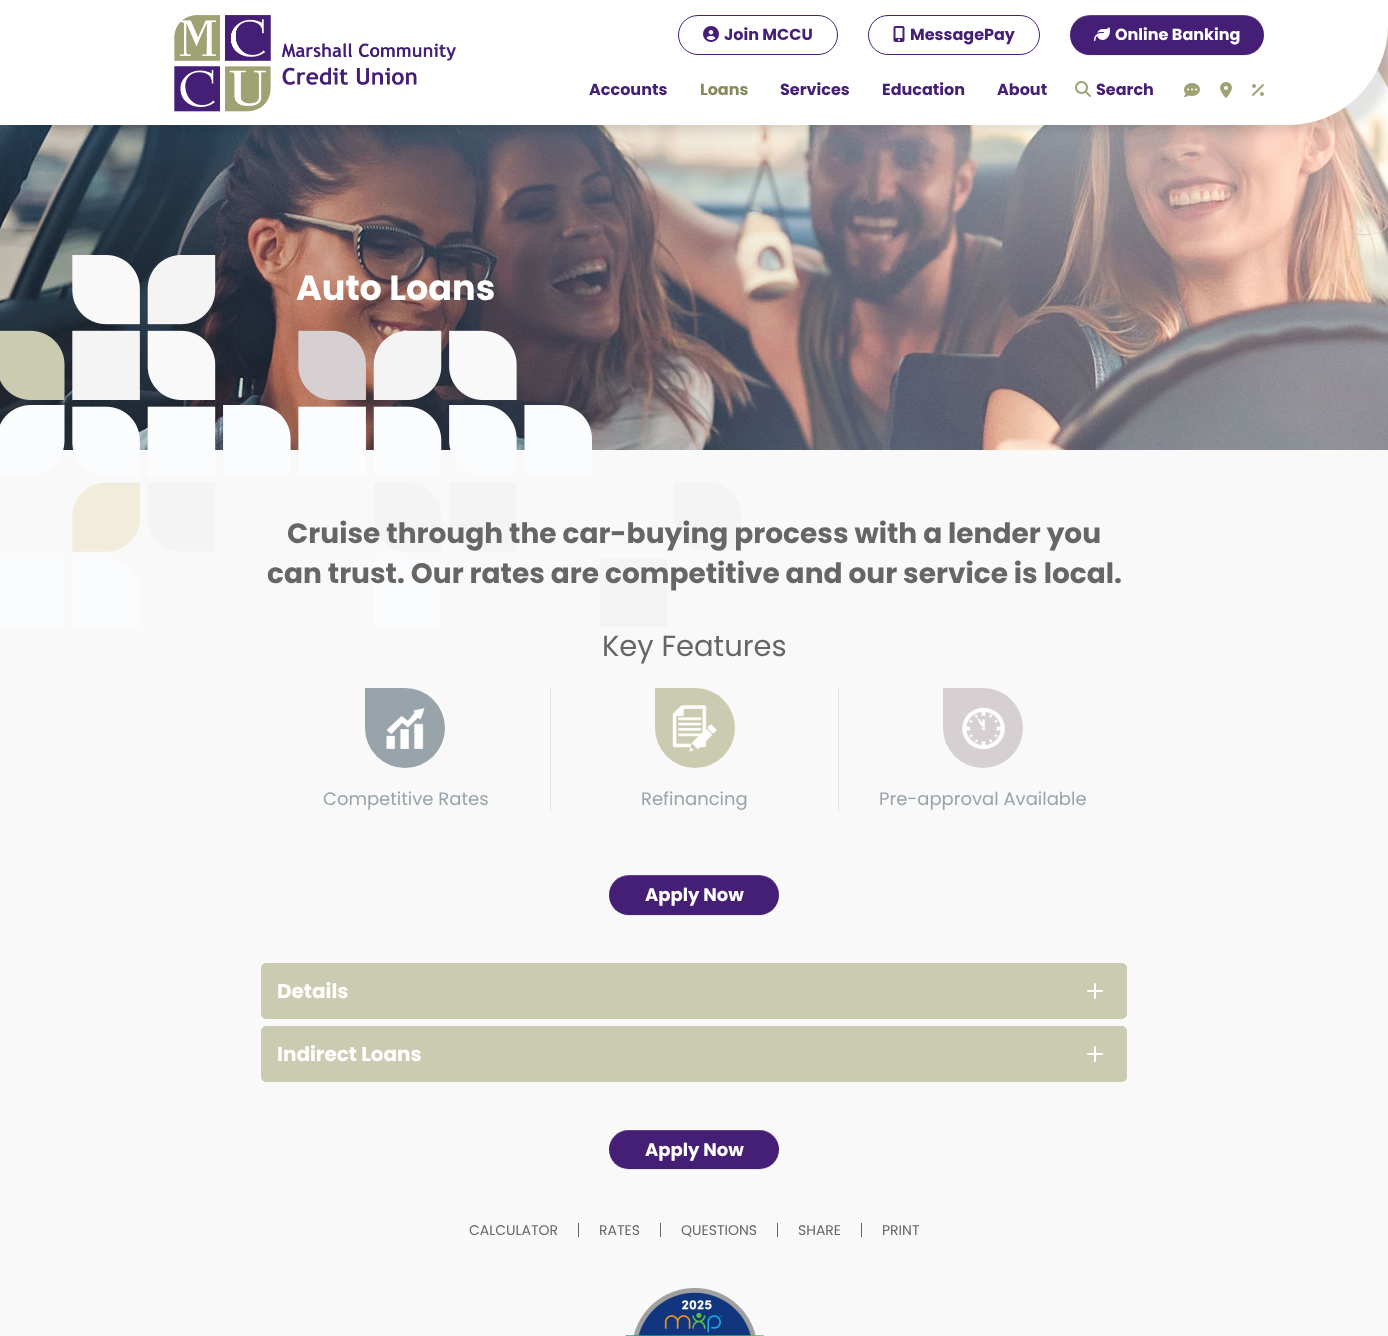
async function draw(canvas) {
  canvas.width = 1388
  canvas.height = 1336
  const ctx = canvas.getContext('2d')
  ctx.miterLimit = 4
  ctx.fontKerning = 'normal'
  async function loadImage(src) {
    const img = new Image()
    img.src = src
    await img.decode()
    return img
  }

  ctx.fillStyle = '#f9f9fa'
  ctx.fillRect(0, 0, 1388, 1336)
  ctx.drawImage(await loadImage('image8.png'), 0, 25, 1388, 425)
  ctx.fillStyle = '#0000001a'
  ctx.filter = 'blur(4px)'
  ctx.beginPath()
  ctx.roundRect(0, 5, 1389, 126, 101)
  ctx.fill()
  ctx.filter = 'none'
  ctx.fillStyle = '#fff'
  ctx.beginPath()
  ctx.roundRect(0, 0, 1388, 125, [0, 0, 100, 0])
  ctx.fill()
  ctx.drawImage(await loadImage('image0.png'), 174, 15, 282, 97)
  ctx.beginPath()
  ctx.roundRect(678.5, 15.5, 159, 39, 19.5)
  ctx.strokeStyle = '#451f76'
  ctx.stroke()
  ctx.drawImage(await loadImage('image1.png'), 703, 26, 16, 16)
  ctx.font = 'bold 16px Poppins'
  ctx.fillStyle = '#451f76'
  ctx.fillText('Join MCCU', 724, 40)
  ctx.beginPath()
  ctx.roundRect(868.5, 15.5, 171, 39, 19.5)
  ctx.stroke()
  ctx.drawImage(await loadImage('image2.png'), 893, 26, 12, 16)
  ctx.fillText('MessagePay', 910, 40)
  ctx.fillStyle = '#00000012'
  ctx.filter = 'blur(0.5px)'
  ctx.beginPath()
  ctx.roundRect(1070, 16, 194, 40, 20)
  ctx.fill()
  ctx.filter = 'none'
  ctx.fillStyle = '#451f76'
  ctx.beginPath()
  ctx.roundRect(1070, 15, 194, 40, 20)
  ctx.fill()
  ctx.fillStyle = '#ffffff26'
  ctx.beginPath()
  ctx.moveTo(1090, 16)
  ctx.lineTo(1244, 16)
  ctx.bezierCurveTo(1255, 16, 1264, 25, 1264, 36)
  ctx.lineTo(1264, 35)
  ctx.bezierCurveTo(1264, 24, 1255, 15, 1244, 15)
  ctx.lineTo(1090, 15)
  ctx.bezierCurveTo(1079, 15, 1070, 24, 1070, 35)
  ctx.lineTo(1070, 36)
  ctx.bezierCurveTo(1070, 25, 1079, 16, 1090, 16)
  ctx.closePath()
  ctx.fill()
  ctx.drawImage(await loadImage('image3.png'), 1094, 27, 16, 14)
  ctx.fillStyle = '#fff'
  ctx.fillText('Online Banking', 1115, 40)
  ctx.fillStyle = '#451f76'
  ctx.fillText('Accounts', 589, 95)
  ctx.fillStyle = '#85895b'
  ctx.fillText('Loans', 700, 95)
  ctx.fillStyle = '#451f76'
  ctx.fillText('Services', 780, 95)
  ctx.fillText('Education', 882, 95)
  ctx.fillText('About', 997, 95)
  ctx.drawImage(await loadImage('image4.png'), 1075, 81, 16, 16)
  ctx.fillText('Search', 1096, 95)
  ctx.drawImage(await loadImage('image5.png'), 1184, 83, 16, 14)
  ctx.drawImage(await loadImage('image6.png'), 1220, 82, 12, 16)
  ctx.drawImage(await loadImage('image7.png'), 1252, 84, 12, 12)
  ctx.drawImage(await loadImage('image9.png'), 0, 255, 741, 372)
  ctx.font = 'bold 35px Poppins'
  ctx.fillStyle = '#fff'
  ctx.fillText('Auto Loans', 296, 300)
  ctx.font = 'bold 28px Poppins'
  ctx.fillStyle = '#666'
  ctx.fillText('Cruise through the car-buying process with a lender you', 287, 543)
  ctx.fillText('can trust. Our rates are competitive and our service is local.', 267, 583)
  ctx.font = '29px Poppins'
  ctx.fillText('Key Features', 602, 656)
  ctx.fillStyle = '#98a4a9'
  ctx.beginPath()
  ctx.roundRect(365, 688, 80, 80, [0, 40, 40, 40])
  ctx.fill()
  ctx.drawImage(await loadImage('image10.png'), 386, 708, 39, 41)
  ctx.font = '18px Poppins'
  ctx.fillText('Competitive Rates', 323, 805)
  ctx.fillStyle = '#e1e1e1'
  ctx.fillRect(550, 688, 1, 123)
  ctx.fillStyle = '#cbcbb1'
  ctx.beginPath()
  ctx.roundRect(655, 688, 80, 80, [0, 40, 40, 40])
  ctx.fill()
  ctx.drawImage(await loadImage('image11.png'), 672, 705, 45, 47)
  ctx.fillStyle = '#98a4a9'
  ctx.fillText('Refinancing', 641, 805)
  ctx.fillStyle = '#e1e1e1'
  ctx.fillRect(838, 688, 1, 123)
  ctx.fillStyle = '#d6d0d3'
  ctx.beginPath()
  ctx.roundRect(943, 688, 80, 80, [0, 40, 40, 40])
  ctx.fill()
  ctx.drawImage(await loadImage('image12.png'), 962, 707, 43, 43)
  ctx.fillStyle = '#98a4a9'
  ctx.fillText('Pre-approval Available', 879, 805)
  ctx.fillStyle = '#00000012'
  ctx.filter = 'blur(0.5px)'
  ctx.beginPath()
  ctx.roundRect(609, 876, 170, 40, 20)
  ctx.fill()
  ctx.filter = 'none'
  ctx.fillStyle = '#451f76'
  ctx.beginPath()
  ctx.roundRect(609, 875, 170, 40, 20)
  ctx.fill()
  ctx.fillStyle = '#ffffff26'
  ctx.beginPath()
  ctx.moveTo(629, 876)
  ctx.lineTo(759, 876)
  ctx.bezierCurveTo(770, 876, 779, 885, 779, 896)
  ctx.lineTo(779, 895)
  ctx.bezierCurveTo(779, 884, 770, 875, 759, 875)
  ctx.lineTo(629, 875)
  ctx.bezierCurveTo(618, 875, 609, 884, 609, 895)
  ctx.lineTo(609, 896)
  ctx.bezierCurveTo(609, 885, 618, 876, 629, 876)
  ctx.closePath()
  ctx.fill()
  ctx.font = 'bold 18px Poppins'
  ctx.fillStyle = '#fff'
  ctx.fillText('Apply Now', 645, 901)
  ctx.beginPath()
  ctx.roundRect(261, 963, 866, 56, [4, 4, 0, 0])
  ctx.fill()
  ctx.fillStyle = '#cbcbb1'
  ctx.beginPath()
  ctx.roundRect(261, 963, 866, 56, 5)
  ctx.fill()
  ctx.font = 'bold 20px Poppins'
  ctx.fillStyle = '#fff'
  ctx.fillText('Details', 277, 998)
  ctx.drawImage(await loadImage('image13.png'), 1087, 983, 16, 16)
  ctx.beginPath()
  ctx.roundRect(261, 1026, 866, 56, [0, 0, 4, 4])
  ctx.fill()
  ctx.fillStyle = '#cbcbb1'
  ctx.beginPath()
  ctx.roundRect(261, 1026, 866, 56, 5)
  ctx.fill()
  ctx.fillStyle = '#fff'
  ctx.fillText('Indirect Loans', 277, 1061)
  ctx.drawImage(await loadImage('image13.png'), 1087, 1046, 16, 16)
  ctx.fillStyle = '#00000012'
  ctx.filter = 'blur(0.5px)'
  ctx.beginPath()
  ctx.roundRect(609, 1131, 170, 39, 19.5)
  ctx.fill()
  ctx.filter = 'none'
  ctx.fillStyle = '#451f76'
  ctx.beginPath()
  ctx.roundRect(609, 1130, 170, 39, 19.5)
  ctx.fill()
  ctx.fillStyle = '#ffffff26'
  ctx.beginPath()
  ctx.moveTo(628, 1131)
  ctx.lineTo(760, 1131)
  ctx.bezierCurveTo(770, 1131, 779, 1140, 779, 1150)
  ctx.bezierCurveTo(779, 1139, 770, 1130, 760, 1130)
  ctx.lineTo(628, 1130)
  ctx.bezierCurveTo(618, 1130, 609, 1139, 609, 1150)
  ctx.bezierCurveTo(609, 1140, 618, 1131, 628, 1131)
  ctx.closePath()
  ctx.fill()
  ctx.font = 'bold 18px Poppins'
  ctx.fillStyle = '#fff'
  ctx.fillText('Apply Now', 645, 1156)
  ctx.fillStyle = '#666'
  ctx.fillRect(578, 1223, 1, 14)
  ctx.font = '14px Poppins'
  ctx.fillText('CALCULATOR', 469, 1235)
  ctx.fillRect(660, 1223, 1, 14)
  ctx.fillText('RATES', 599, 1235)
  ctx.fillRect(777, 1223, 1, 14)
  ctx.fillText('QUESTIONS', 681, 1235)
  ctx.fillRect(861, 1223, 1, 14)
  ctx.fillText('SHARE', 798, 1235)
  ctx.fillText('PRINT', 882, 1235)
  ctx.drawImage(await loadImage('image14.png'), 625, 1288, 139, 48)
}

draw(document.querySelector('canvas'))
